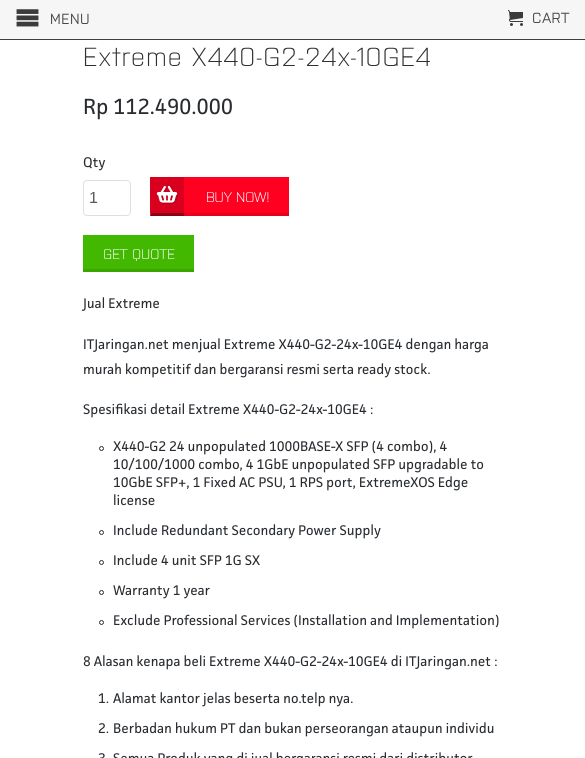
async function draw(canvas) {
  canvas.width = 585
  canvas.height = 758
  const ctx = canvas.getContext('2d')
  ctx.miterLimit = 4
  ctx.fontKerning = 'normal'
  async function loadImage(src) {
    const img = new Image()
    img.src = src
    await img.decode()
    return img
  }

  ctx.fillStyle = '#fff'
  ctx.fillRect(0, 0, 585, 758)
  ctx.fillStyle = '#f6f6f6'
  ctx.fillRect(0, 0, 585, 39)
  ctx.fillStyle = '#3d3d3d'
  ctx.fillRect(0, 39, 585, 1)
  ctx.drawImage(await loadImage('image0.png'), 16, 9, 23, 18)
  ctx.letterSpacing = '1px'
  ctx.font = 'bold 14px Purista'
  ctx.fillStyle = '#4a4a4a'
  ctx.fillText('MENU', 50, 24)
  ctx.drawImage(await loadImage('image1.png'), 508, 10, 15, 16)
  ctx.fillText('CART', 532, 23)
  ctx.font = '300 26px Purista'
  ctx.fillStyle = '#303030'
  ctx.fillText('Extreme X440-G2-24x-10GE4', 83, 66)
  ctx.drawImage(await loadImage('image2.png'), 84, 98, 148, 22)
  ctx.drawImage(await loadImage('image3.png'), 83, 157, 23, 14)
  ctx.beginPath()
  ctx.roundRect(83.5, 180.5, 47, 35, 3.5)
  ctx.strokeStyle = '#dce0e0'
  ctx.stroke()
  ctx.letterSpacing = '0px'
  ctx.font = '16px Liberation Sans'
  ctx.fillStyle = '#565a5c'
  ctx.fillText('1', 89, 203)
  ctx.fillStyle = '#ff0020'
  ctx.fillRect(184, 177, 105, 36)
  ctx.fillStyle = '#e6001d'
  ctx.fillRect(184, 213, 105, 3)
  ctx.fillStyle = '#d9001f'
  ctx.fillRect(151, 178, 33, 35)
  ctx.drawImage(await loadImage('image4.png'), 156, 186, 23, 19)
  ctx.fillRect(150, 177, 34, 1)
  ctx.fillStyle = '#8d0014'
  ctx.beginPath()
  ctx.moveTo(184, 216)
  ctx.lineTo(150, 216)
  ctx.lineTo(151, 213)
  ctx.lineTo(184, 213)
  ctx.closePath()
  ctx.fill()
  ctx.fillStyle = '#d9001f'
  ctx.beginPath()
  ctx.moveTo(150, 216)
  ctx.lineTo(150, 177)
  ctx.lineTo(151, 178)
  ctx.lineTo(151, 213)
  ctx.closePath()
  ctx.fill()
  ctx.font = '300 14px Purista'
  ctx.fillStyle = '#fff'
  ctx.fillText('BUY NOW!', 206, 202)
  ctx.fillStyle = '#42b800'
  ctx.fillRect(83, 235, 111, 34)
  ctx.fillStyle = '#3ba600'
  ctx.fillRect(83, 269, 111, 3)
  ctx.fillStyle = '#fff'
  ctx.fillText('GET QUOTE', 103, 259)
  ctx.drawImage(await loadImage('image5.png'), 81, 297, 78, 14)
  ctx.drawImage(await loadImage('image6.png'), 84, 338, 404, 15)
  ctx.drawImage(await loadImage('image7.png'), 84, 363, 346, 15)
  ctx.drawImage(await loadImage('image8.png'), 83, 403, 290, 15)
  ctx.beginPath()
  ctx.arc(101.5, 448.5, 2, 0, 2 * Math.PI)
  ctx.strokeStyle = '#282c30'
  ctx.stroke()
  ctx.drawImage(await loadImage('image9.png'), 113, 440, 334, 15)
  ctx.drawImage(await loadImage('image10.png'), 113, 457, 371, 16)
  ctx.drawImage(await loadImage('image11.png'), 113, 476, 355, 15)
  ctx.drawImage(await loadImage('image12.png'), 114, 494, 41, 12)
  ctx.beginPath()
  ctx.arc(101.5, 532.5, 2, 0, 2 * Math.PI)
  ctx.stroke()
  ctx.drawImage(await loadImage('image13.png'), 114, 524, 267, 15)
  ctx.beginPath()
  ctx.arc(101.5, 562.5, 2, 0, 2 * Math.PI)
  ctx.stroke()
  ctx.drawImage(await loadImage('image14.png'), 114, 554, 146, 12)
  ctx.beginPath()
  ctx.arc(101.5, 592.5, 2, 0, 2 * Math.PI)
  ctx.stroke()
  ctx.drawImage(await loadImage('image15.png'), 113, 585, 97, 14)
  ctx.beginPath()
  ctx.arc(101.5, 622.5, 2, 0, 2 * Math.PI)
  ctx.stroke()
  ctx.drawImage(await loadImage('image16.png'), 114, 614, 385, 15)
  ctx.drawImage(await loadImage('image17.png'), 83, 655, 414, 15)
  ctx.drawImage(await loadImage('image18.png'), 98, 693, 11, 10)
  ctx.drawImage(await loadImage('image19.png'), 113, 692, 240, 15)
  ctx.drawImage(await loadImage('image20.png'), 98, 723, 11, 10)
  ctx.drawImage(await loadImage('image21.png'), 114, 722, 380, 15)
  ctx.drawImage(await loadImage('image22.png'), 98, 753, 7, 5)
  ctx.drawImage(await loadImage('image23.png'), 113, 752, 360, 6)
}

draw(document.querySelector('canvas'))
